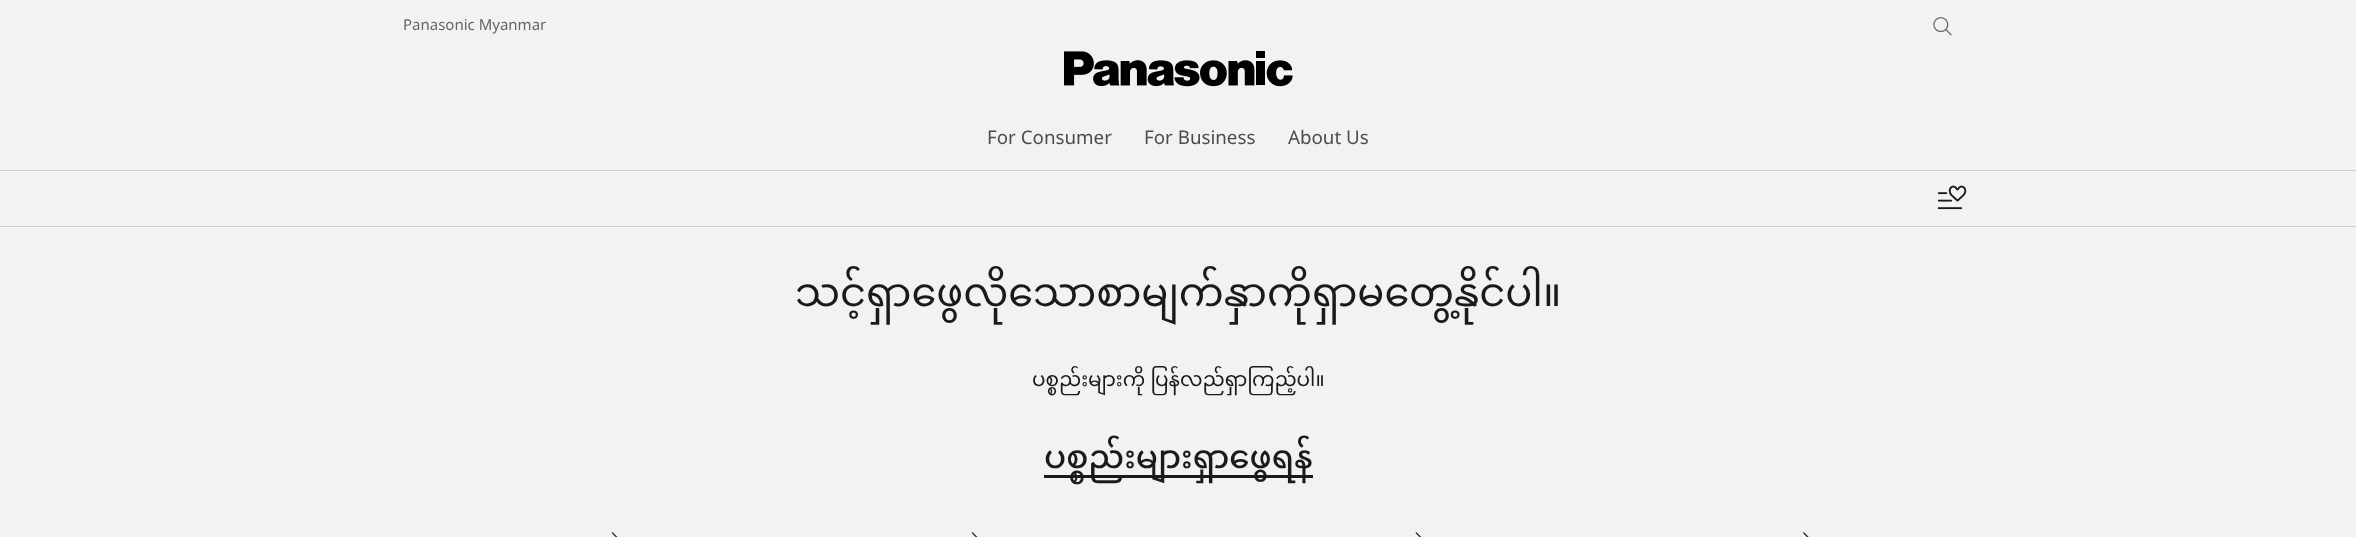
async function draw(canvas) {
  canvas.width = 2356
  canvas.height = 537
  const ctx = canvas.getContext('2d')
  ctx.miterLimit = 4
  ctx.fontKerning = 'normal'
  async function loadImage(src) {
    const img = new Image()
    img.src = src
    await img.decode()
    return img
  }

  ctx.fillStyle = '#f2f2f2'
  ctx.fillRect(0, 0, 2356, 537)
  ctx.font = '15px Noto Sans'
  ctx.fillStyle = '#666'
  ctx.fillText('Panasonic Myanmar', 403, 30)
  ctx.drawImage(await loadImage('image0.png'), 1933, 17, 19, 19)
  ctx.drawImage(await loadImage('image1.png'), 1064, 51, 229, 36)
  ctx.font = '18.75px Noto Sans'
  ctx.fillStyle = '#4d4d4d'
  ctx.fillText('For Consumer', 987, 144)
  ctx.fillText('For Business', 1144, 144)
  ctx.fillText('About Us', 1288, 144)
  ctx.fillStyle = '#ccc'
  ctx.fillRect(0, 170, 2356, 1)
  ctx.fillRect(0, 226, 2356, 1)
  ctx.drawImage(await loadImage('image2.png'), 1937, 185, 30, 25)
  ctx.font = '40px Noto Sans Myanmar'
  ctx.fillStyle = '#1a1a1a'
  ctx.fillText('သင့်ရှာဖွေလိုသောစာမျက်နှာကိုရှာမတွေ့နိုင်ပါ။', 795, 306)
  ctx.font = '20px Noto Sans Myanmar'
  ctx.fillText('ပစ္စည်းများကို ပြန်လည်ရှာကြည့်ပါ။', 1032, 386)
  ctx.fillRect(1044, 475, 269, 3)
  ctx.font = '500 32.5px Noto Sans Myanmar'
  ctx.fillText('ပစ္စည်းများရှာဖွေရန်', 1044, 468)
  ctx.drawImage(await loadImage('image3.png'), 611, 532, 7, 5)
  ctx.drawImage(await loadImage('image3.png'), 971, 532, 7, 5)
  ctx.drawImage(await loadImage('image4.png'), 1415, 532, 6, 5)
  ctx.drawImage(await loadImage('image5.png'), 1803, 532, 6, 5)
}

draw(document.querySelector('canvas'))
